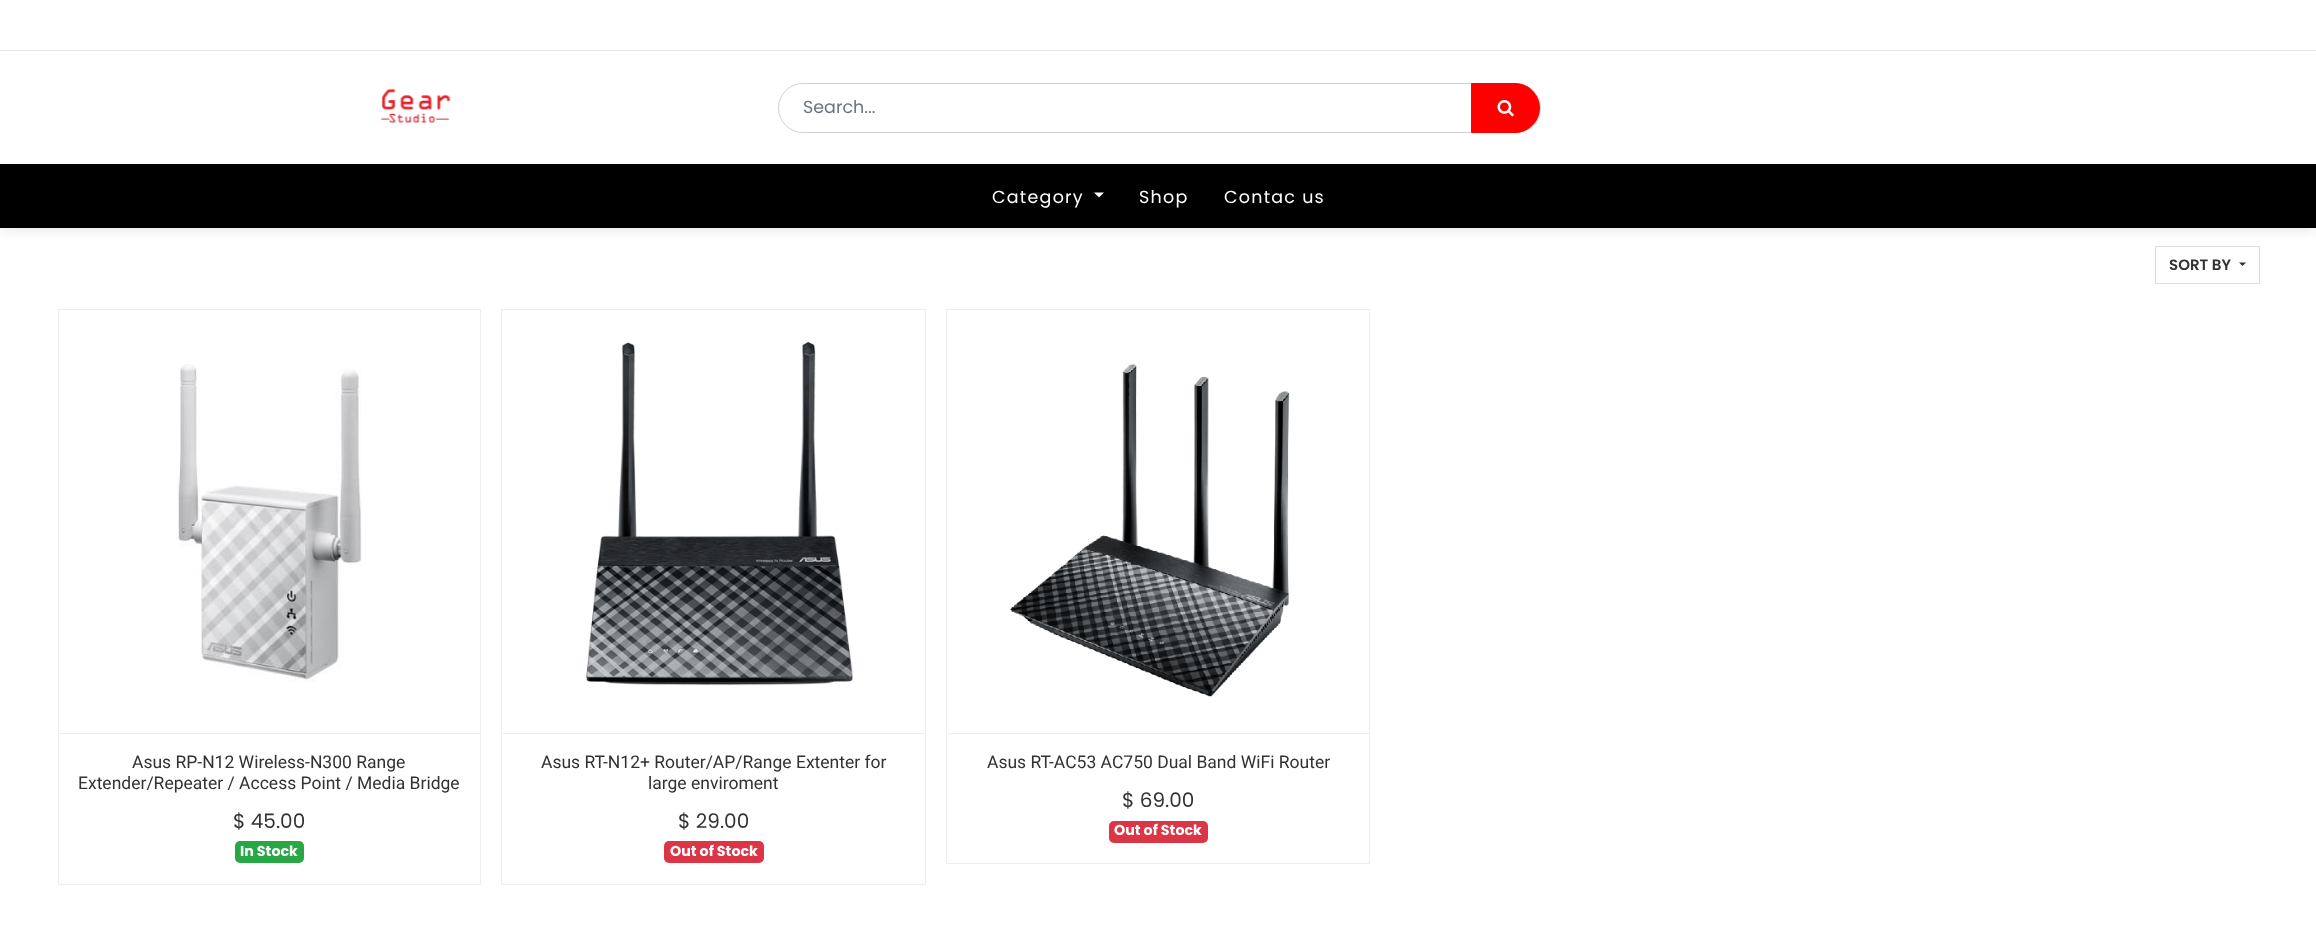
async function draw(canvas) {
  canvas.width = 2316
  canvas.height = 928
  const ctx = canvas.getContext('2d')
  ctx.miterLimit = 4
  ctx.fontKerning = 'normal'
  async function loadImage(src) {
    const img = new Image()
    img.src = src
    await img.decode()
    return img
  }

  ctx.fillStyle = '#fff'
  ctx.fillRect(0, 0, 2316, 928)
  ctx.strokeStyle = '#ddd'
  ctx.strokeRect(2155.5, 246.5, 104, 37)
  ctx.fillStyle = '#0000001f'
  ctx.filter = 'blur(7.5px)'
  ctx.beginPath()
  ctx.rect(0, 0, 2316, 228)
  ctx.fill()
  ctx.filter = 'none'
  ctx.fillStyle = '#fff'
  ctx.fillRect(0, 0, 2316, 164)
  ctx.fillStyle = '#e6e6e6'
  ctx.fillRect(0, 50, 2316, 1)
  ctx.drawImage(await loadImage('image0.png'), 381, 88, 70, 35)
  ctx.beginPath()
  ctx.roundRect(778.5, 83.5, 762, 49, 24.5)
  ctx.strokeStyle = '#d1d1d1'
  ctx.stroke()
  ctx.font = '17.5px Poppins'
  ctx.fillStyle = '#6c757d'
  ctx.fillText('Search...', 803, 113)
  ctx.fillStyle = '#f00'
  ctx.beginPath()
  ctx.roundRect(1471.5, 83.5, 68, 49, [0, 24.5, 24.5, 0])
  ctx.fill()
  ctx.strokeStyle = '#f00'
  ctx.stroke()
  ctx.drawImage(await loadImage('image1.png'), 1497, 100, 17, 17)
  ctx.fillStyle = '#000'
  ctx.fillRect(0, 164, 2316, 64)
  ctx.letterSpacing = '1.25px'
  ctx.fillStyle = '#fff'
  ctx.fillText('Category', 992, 203)
  ctx.beginPath()
  ctx.moveTo(1094, 192.5)
  ctx.lineTo(1104, 192.5)
  ctx.lineTo(1099, 197.5)
  ctx.closePath()
  ctx.fill()
  ctx.fillText('Shop', 1139, 203)
  ctx.fillText('Contac us', 1224, 203)
  ctx.letterSpacing = '0px'
  ctx.font = '600 15px Poppins'
  ctx.fillStyle = '#323232'
  ctx.fillText('SORT BY', 2169, 270)
  ctx.beginPath()
  ctx.moveTo(2239, 262.5)
  ctx.lineTo(2246, 262.5)
  ctx.lineTo(2242.5, 266)
  ctx.closePath()
  ctx.fill()
  ctx.strokeStyle = '#eee'
  ctx.strokeRect(58.5, 309.5, 422, 575)
  ctx.drawImage(await loadImage('image2.png'), 176, 364, 186, 318)
  ctx.fillStyle = '#eee'
  ctx.fillRect(59, 733, 421, 1)
  ctx.font = '17.5px Roboto'
  ctx.fillStyle = '#323232'
  ctx.fillText('Asus RP-N12 Wireless-N300 Range', 132, 768)
  ctx.fillText('Extender/Repeater / Access Point / Media Bridge', 78, 789)
  ctx.font = '20px Poppins'
  ctx.fillText('$ 45.00', 233, 828)
  ctx.fillStyle = '#28a745'
  ctx.beginPath()
  ctx.roundRect(235, 841, 69, 22, 5)
  ctx.fill()
  ctx.font = 'bold 14.25px Poppins'
  ctx.fillStyle = '#fff'
  ctx.fillText('In Stock', 240, 856)
  ctx.strokeRect(501.5, 309.5, 424, 575)
  ctx.drawImage(await loadImage('image3.png'), 586, 341, 267, 345)
  ctx.fillStyle = '#eee'
  ctx.fillRect(503, 733, 422, 1)
  ctx.font = '17.5px Roboto'
  ctx.fillStyle = '#323232'
  ctx.fillText('Asus RT-N12+ Router/AP/Range Extenter for', 541, 768)
  ctx.fillText('large enviroment', 648, 789)
  ctx.font = '20px Poppins'
  ctx.fillText('$ 29.00', 678, 828)
  ctx.fillStyle = '#dc3545'
  ctx.beginPath()
  ctx.roundRect(664, 841, 100, 22, 5)
  ctx.fill()
  ctx.font = 'bold 14.25px Poppins'
  ctx.fillStyle = '#fff'
  ctx.fillText('Out of Stock', 670, 856)
  ctx.strokeRect(946.5, 309.5, 423, 554)
  ctx.drawImage(await loadImage('image4.png'), 1010, 363, 280, 334)
  ctx.fillStyle = '#eee'
  ctx.fillRect(948, 733, 421, 1)
  ctx.font = '17.5px Roboto'
  ctx.fillStyle = '#323232'
  ctx.fillText('Asus RT-AC53 AC750 Dual Band WiFi Router', 987, 768)
  ctx.font = '20px Poppins'
  ctx.fillText('$ 69.00', 1122, 807)
  ctx.fillStyle = '#dc3545'
  ctx.beginPath()
  ctx.roundRect(1109, 821, 99, 22, 5)
  ctx.fill()
  ctx.font = 'bold 14.25px Poppins'
  ctx.fillStyle = '#fff'
  ctx.fillText('Out of Stock', 1114, 835)
}

draw(document.querySelector('canvas'))
